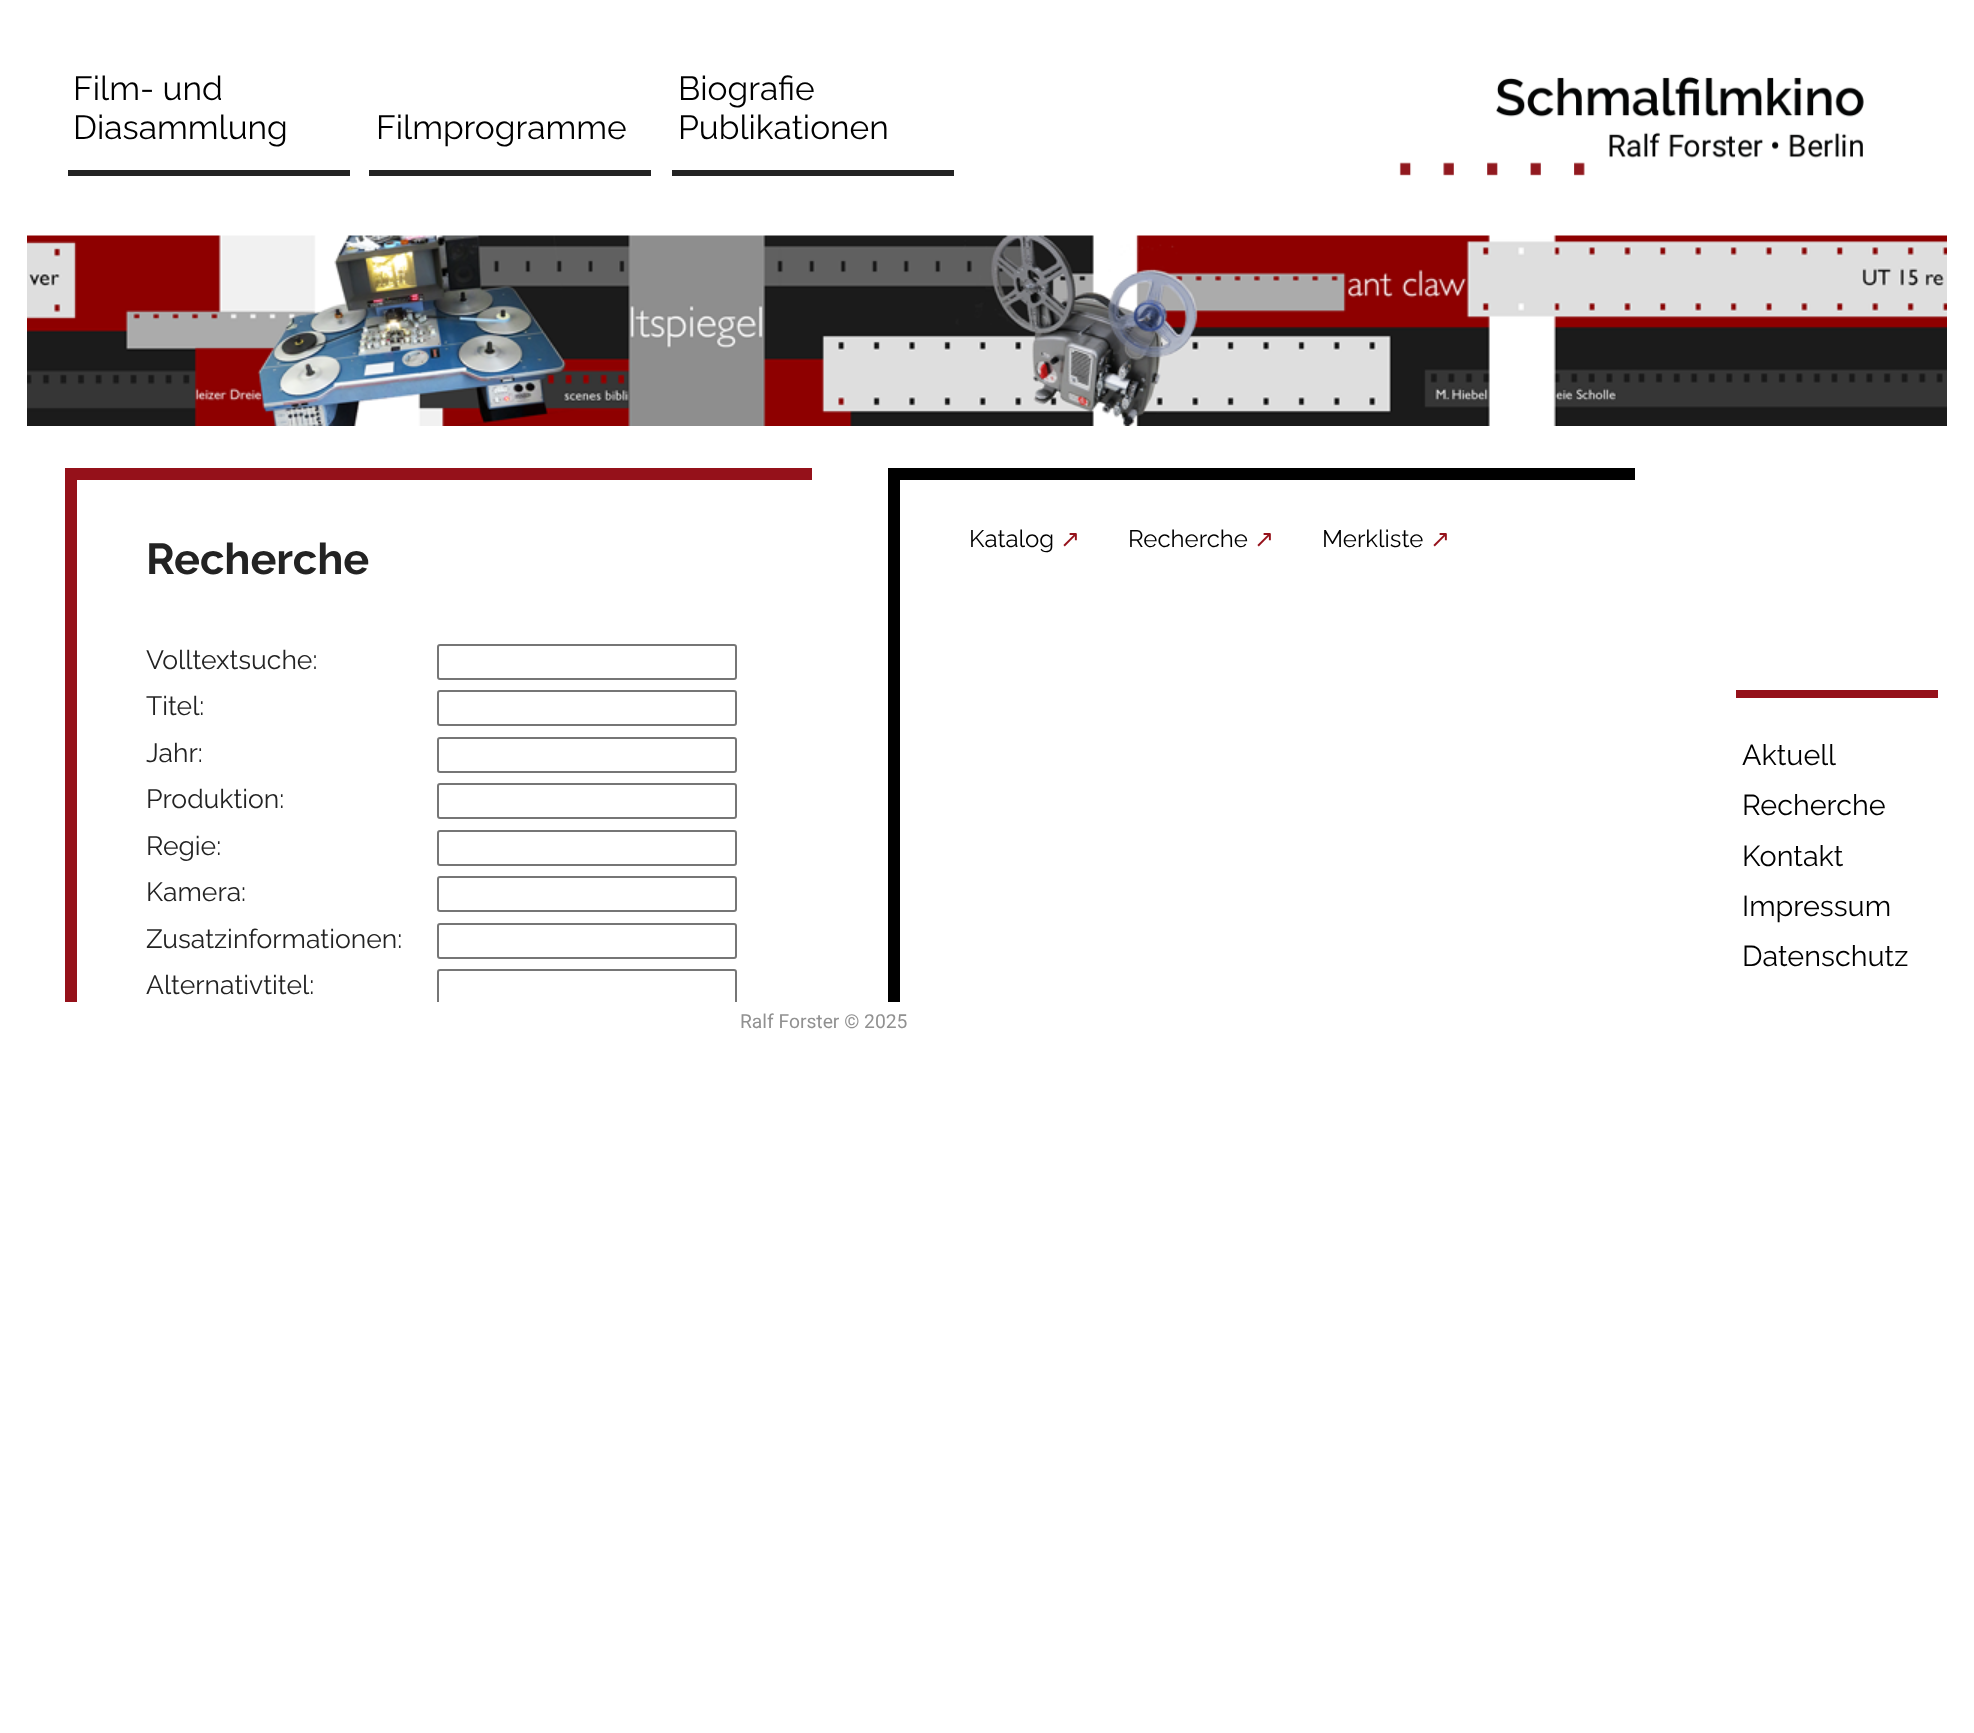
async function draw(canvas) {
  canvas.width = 1974
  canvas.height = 1733
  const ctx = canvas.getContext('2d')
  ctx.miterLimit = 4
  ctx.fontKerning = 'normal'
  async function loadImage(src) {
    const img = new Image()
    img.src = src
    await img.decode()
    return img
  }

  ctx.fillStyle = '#fff'
  ctx.fillRect(0, 0, 1974, 1733)
  ctx.fillStyle = '#232323'
  ctx.fillRect(68, 170, 282, 6)
  ctx.font = '33.5px Raleway'
  ctx.fillStyle = '#000'
  ctx.fillText('Film- und', 73, 100)
  ctx.fillText('Diasammlung', 73, 139)
  ctx.fillStyle = '#232323'
  ctx.fillRect(369, 170, 282, 6)
  ctx.fillStyle = '#000'
  ctx.fillText('Filmprogramme', 376, 139)
  ctx.fillStyle = '#232323'
  ctx.fillRect(672, 170, 282, 6)
  ctx.fillStyle = '#000'
  ctx.fillText('Biografie', 678, 100)
  ctx.fillText('Publikationen', 678, 139)
  ctx.drawImage(await loadImage('image0.png'), 1399, 76, 465, 100)
  ctx.drawImage(await loadImage('image1.png'), 27, 235, 1920, 191)
  ctx.fillStyle = '#95111a'
  ctx.fillRect(77, 468, 735, 12)
  ctx.fillRect(65, 468, 12, 534)
  ctx.font = 'bold 43.25px Raleway'
  ctx.fillStyle = '#232323'
  ctx.fillText('Recherche', 146, 574)
  ctx.font = '26.5px Raleway'
  ctx.fillText('Volltextsuche:', 146, 669)
  ctx.beginPath()
  ctx.roundRect(438, 645, 298, 34, 2)
  ctx.strokeStyle = '#767676'
  ctx.lineWidth = 2
  ctx.stroke()
  ctx.fillText('Titel:', 146, 715)
  ctx.beginPath()
  ctx.roundRect(438, 691, 298, 34, 2)
  ctx.stroke()
  ctx.fillText('Jahr:', 146, 762)
  ctx.beginPath()
  ctx.roundRect(438, 738, 298, 34, 2)
  ctx.stroke()
  ctx.fillText('Produktion:', 146, 808)
  ctx.beginPath()
  ctx.roundRect(438, 784, 298, 34, 2)
  ctx.stroke()
  ctx.fillText('Regie:', 146, 855)
  ctx.beginPath()
  ctx.roundRect(438, 831, 298, 34, 2)
  ctx.stroke()
  ctx.fillText('Kamera:', 146, 901)
  ctx.beginPath()
  ctx.roundRect(438, 877, 298, 34, 2)
  ctx.stroke()
  ctx.fillText('Zusatzinformationen:', 146, 948)
  ctx.beginPath()
  ctx.roundRect(438, 924, 298, 34, 2)
  ctx.stroke()
  ctx.fillText('Alternativtitel:', 146, 994)
  ctx.save()
  ctx.beginPath()
  ctx.rect(77, 480, 735, 522)
  ctx.clip()
  ctx.beginPath()
  ctx.roundRect(438, 970, 298, 34, 2)
  ctx.stroke()
  ctx.restore()
  ctx.fillStyle = '#000'
  ctx.fillRect(900, 468, 735, 12)
  ctx.fillRect(888, 468, 12, 534)
  ctx.font = '24px Raleway'
  ctx.fillText('Katalog', 969, 547)
  ctx.font = '24px DejaVu Sans'
  ctx.fillStyle = '#95111a'
  ctx.fillText('↗', 1060, 547)
  ctx.font = '24px Raleway'
  ctx.fillStyle = '#000'
  ctx.fillText('Recherche', 1128, 547)
  ctx.font = '24px DejaVu Sans'
  ctx.fillStyle = '#95111a'
  ctx.fillText('↗', 1254, 547)
  ctx.font = '24px Raleway'
  ctx.fillStyle = '#000'
  ctx.fillText('Merkliste', 1322, 547)
  ctx.font = '24px DejaVu Sans'
  ctx.fillStyle = '#95111a'
  ctx.fillText('↗', 1430, 547)
  ctx.fillRect(1736, 690, 202, 8)
  ctx.font = '28.75px Raleway'
  ctx.fillStyle = '#000'
  ctx.fillText('Aktuell', 1742, 765)
  ctx.fillText('Recherche', 1742, 815)
  ctx.fillText('Kontakt', 1742, 866)
  ctx.fillText('Impressum', 1742, 916)
  ctx.fillText('Datenschutz', 1742, 966)
  ctx.font = '19.25px Roboto'
  ctx.fillStyle = '#919191'
  ctx.fillText('Ralf Forster © 2025', 740, 1028)
}

draw(document.querySelector('canvas'))
